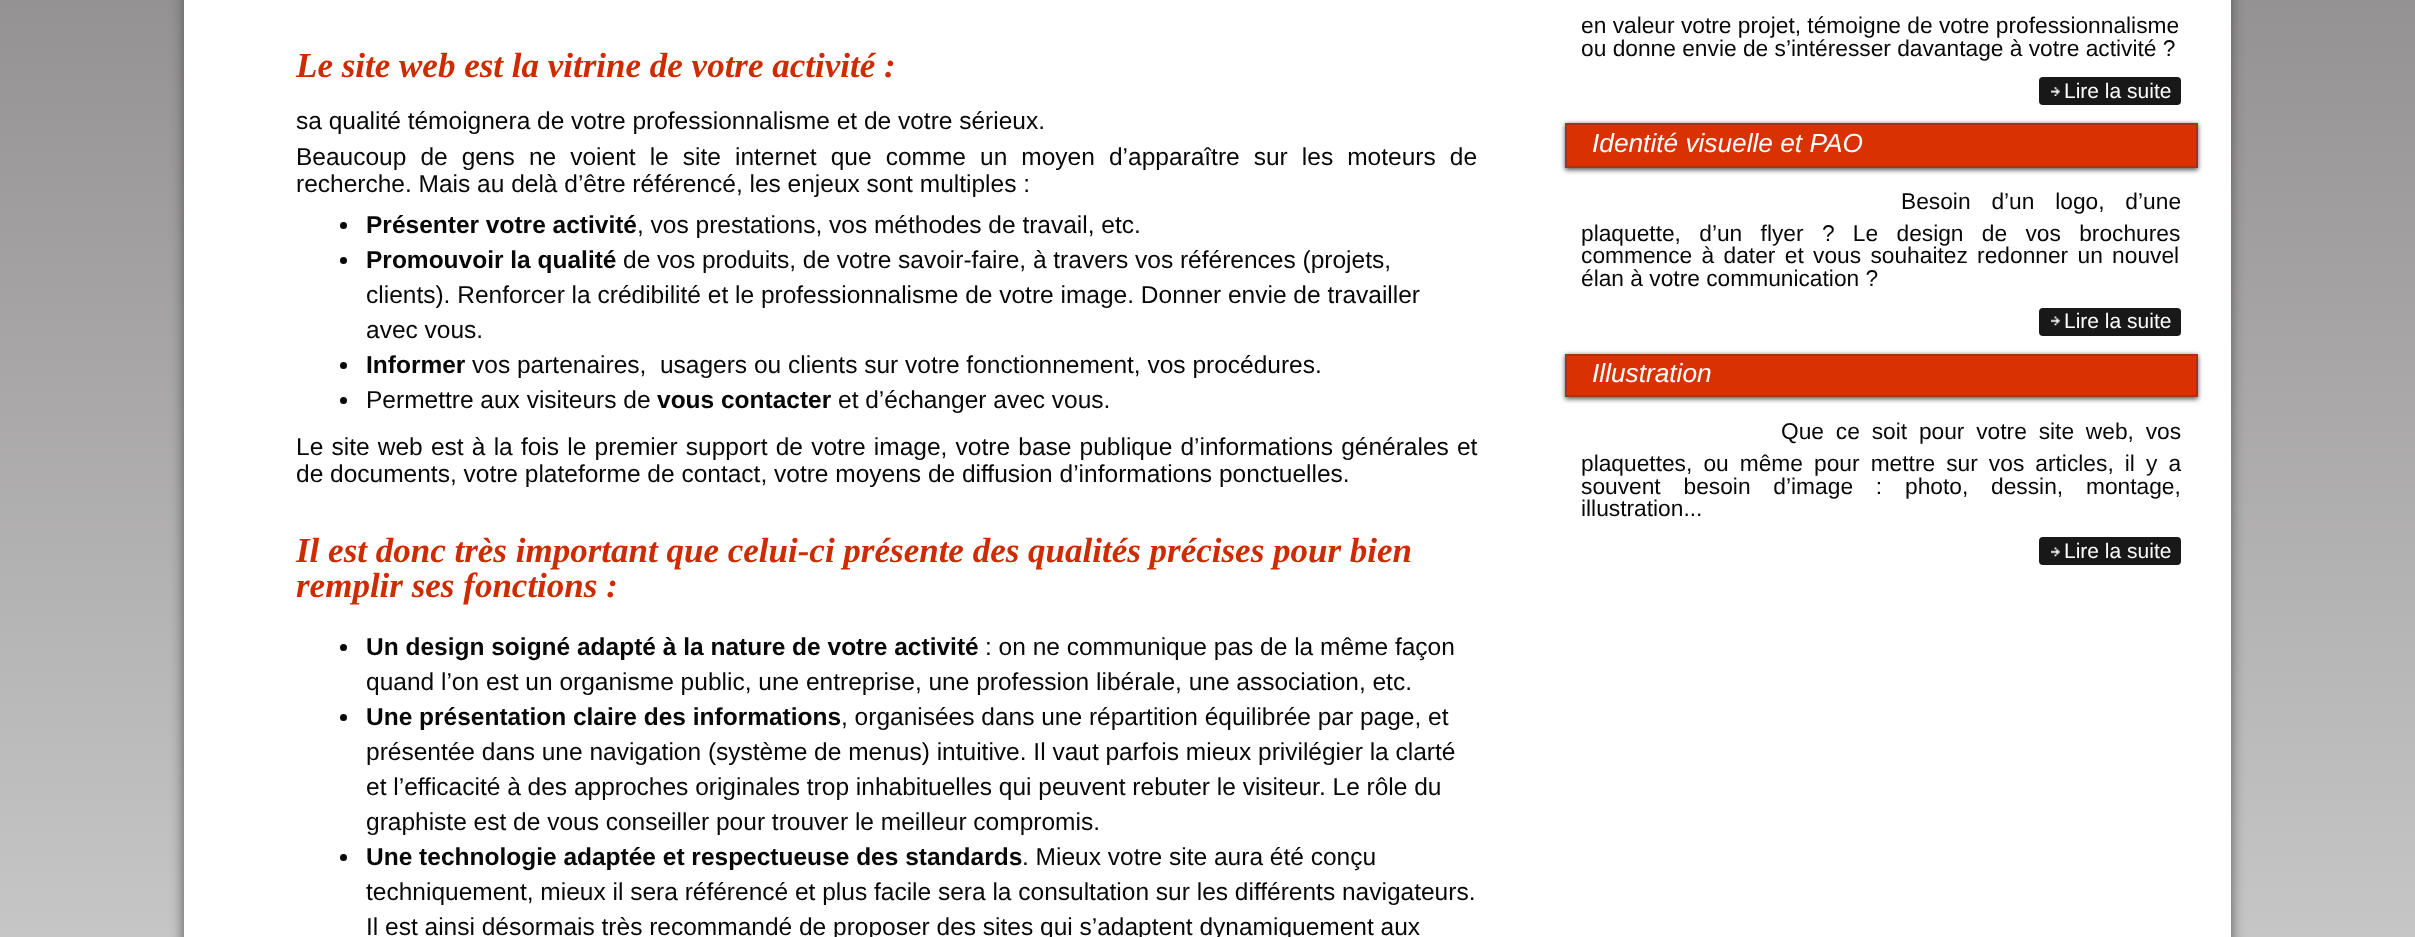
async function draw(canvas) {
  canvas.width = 2415
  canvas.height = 937
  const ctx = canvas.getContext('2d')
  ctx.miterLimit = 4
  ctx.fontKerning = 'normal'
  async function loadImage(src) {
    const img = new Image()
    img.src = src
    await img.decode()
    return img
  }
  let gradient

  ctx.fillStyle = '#fff'
  ctx.fillRect(0, 0, 2415, 937)
  gradient = ctx.createLinearGradient(1208, 0, 1208, 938)
  gradient.addColorStop(0, '#949292')
  gradient.addColorStop(1, '#c7c6c6')
  ctx.fillStyle = gradient
  ctx.fillRect(0, 0, 2415, 937)
  ctx.fillStyle = '#555'
  ctx.filter = 'blur(7px)'
  ctx.beginPath()
  ctx.roundRect(184, -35, 2047, 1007, 14)
  ctx.fill()
  ctx.filter = 'none'
  ctx.fillStyle = '#fff'
  ctx.fillRect(184, 0, 2047, 937)
  ctx.font = 'italic bold 35px Liberation Serif'
  ctx.fillStyle = '#ce2c00'
  ctx.fillText('Le site web est la vitrine de votre activité :', 296, 77)
  ctx.font = '24.5px Liberation Sans'
  ctx.fillStyle = '#080808'
  ctx.fillText('sa qualité témoignera de votre professionnalisme et de votre sérieux.', 296, 129)
  ctx.wordSpacing = '7.25px'
  ctx.fillText('Beaucoup de gens ne voient le site internet que comme un moyen d’apparaître sur les moteurs de', 296, 165)
  ctx.wordSpacing = '0px'
  ctx.fillText('recherche. Mais au delà d’être référencé, les enjeux sont multiples :', 296, 192)
  ctx.beginPath()
  ctx.arc(343.5, 225.5, 3.5, 0, 2 * Math.PI)
  ctx.fill()
  ctx.font = 'bold 24.5px Liberation Sans'
  ctx.fillText('Présenter votre activité', 366, 233)
  ctx.font = '24.5px Liberation Sans'
  ctx.fillText(', vos prestations, vos méthodes de travail, etc.', 637, 233)
  ctx.beginPath()
  ctx.arc(343.5, 260.5, 3.5, 0, 2 * Math.PI)
  ctx.fill()
  ctx.font = 'bold 24.5px Liberation Sans'
  ctx.fillText('Promouvoir la qualité', 366, 268)
  ctx.font = '24.5px Liberation Sans'
  ctx.fillText('de vos produits, de votre savoir-faire, à travers vos références (projets,', 623, 268)
  ctx.fillText('clients). Renforcer la crédibilité et le professionnalisme de votre image. Donner envie de travailler', 366, 303)
  ctx.fillText('avec vous.', 366, 338)
  ctx.beginPath()
  ctx.arc(343.5, 365.5, 3.5, 0, 2 * Math.PI)
  ctx.fill()
  ctx.font = 'bold 24.5px Liberation Sans'
  ctx.fillText('Informer', 366, 373)
  ctx.font = '24.5px Liberation Sans'
  ctx.fillText('vos partenaires,  usagers ou clients sur votre fonctionnement, vos procédures.', 472, 373)
  ctx.beginPath()
  ctx.arc(343.5, 400.5, 3.5, 0, 2 * Math.PI)
  ctx.fill()
  ctx.fillText('Permettre aux visiteurs de', 366, 408)
  ctx.font = 'bold 24.5px Liberation Sans'
  ctx.fillText('vous contacter', 657, 408)
  ctx.font = '24.5px Liberation Sans'
  ctx.fillText('et d’échanger avec vous.', 838, 408)
  ctx.wordSpacing = '1.4px'
  ctx.fillText('Le site web est à la fois le premier support de votre image, votre base publique d’informations générales et', 296, 455)
  ctx.wordSpacing = '0px'
  ctx.fillText('de documents, votre plateforme de contact, votre moyens de diffusion d’informations ponctuelles.', 296, 482)
  ctx.font = 'italic bold 35px Liberation Serif'
  ctx.fillStyle = '#ce2c00'
  ctx.fillText('Il est donc très important que celui-ci présente des qualités précises pour bien', 296, 562)
  ctx.fillText('remplir ses fonctions :', 296, 597)
  ctx.fillStyle = '#080808'
  ctx.beginPath()
  ctx.arc(343.5, 647.5, 3.5, 0, 2 * Math.PI)
  ctx.fill()
  ctx.font = 'bold 24.5px Liberation Sans'
  ctx.fillText('Un design soigné adapté à la nature de votre activité', 366, 655)
  ctx.font = '24.5px Liberation Sans'
  ctx.fillText(': on ne communique pas de la même façon', 985, 655)
  ctx.fillText('quand l’on est un organisme public, une entreprise, une profession libérale, une association, etc.', 366, 690)
  ctx.beginPath()
  ctx.arc(343.5, 717.5, 3.5, 0, 2 * Math.PI)
  ctx.fill()
  ctx.font = 'bold 24.5px Liberation Sans'
  ctx.fillText('Une présentation claire des informations', 366, 725)
  ctx.font = '24.5px Liberation Sans'
  ctx.fillText(', organisées dans une répartition équilibrée par page, et', 841, 725)
  ctx.fillText('présentée dans une navigation (système de menus) intuitive. Il vaut parfois mieux privilégier la clarté', 366, 760)
  ctx.fillText('et l’efficacité à des approches originales trop inhabituelles qui peuvent rebuter le visiteur. Le rôle du', 366, 795)
  ctx.fillText('graphiste est de vous conseiller pour trouver le meilleur compromis.', 366, 830)
  ctx.beginPath()
  ctx.arc(343.5, 857.5, 3.5, 0, 2 * Math.PI)
  ctx.fill()
  ctx.font = 'bold 24.5px Liberation Sans'
  ctx.fillText('Une technologie adaptée et respectueuse des standards', 366, 865)
  ctx.font = '24.5px Liberation Sans'
  ctx.fillText('. Mieux votre site aura été conçu', 1022, 865)
  ctx.fillText('techniquement, mieux il sera référencé et plus facile sera la consultation sur les différents navigateurs.', 366, 900)
  ctx.fillText('Il est ainsi désormais très recommandé de proposer des sites qui s’adaptent dynamiquement aux', 366, 935)
  ctx.font = '22.75px Liberation Sans'
  ctx.fillText('en valeur votre projet, témoigne de votre professionnalisme', 1581, 33)
  ctx.fillText('ou donne envie de s’intéresser davantage à votre activité ?', 1581, 56)
  ctx.fillStyle = '#181818'
  ctx.beginPath()
  ctx.roundRect(2039, 77, 142, 28, 4)
  ctx.fill()
  ctx.drawImage(await loadImage('image0.png'), 2051, 87, 9, 9)
  ctx.font = '21px Liberation Sans'
  ctx.fillStyle = '#fff'
  ctx.fillText('Lire la suite', 2064, 98)
  ctx.fillStyle = '#555'
  ctx.filter = 'blur(2.5px)'
  ctx.beginPath()
  ctx.rect(1565, 124, 633, 46)
  ctx.fill()
  ctx.filter = 'none'
  ctx.fillStyle = '#da3103'
  ctx.beginPath()
  ctx.rect(1566, 124, 631, 43)
  ctx.fill()
  ctx.strokeStyle = '#a43417'
  ctx.lineWidth = 2
  ctx.stroke()
  ctx.font = 'italic 26.25px Liberation Sans'
  ctx.fillStyle = '#fff'
  ctx.fillText('Identité visuelle et PAO', 1592, 152)
  ctx.wordSpacing = '14.5px'
  ctx.font = '22.75px Liberation Sans'
  ctx.fillStyle = '#080808'
  ctx.fillText('Besoin d’un logo, d’une', 1901, 209)
  ctx.wordSpacing = '12px'
  ctx.fillText('plaquette, d’un flyer ? Le design de vos brochures', 1581, 241)
  ctx.wordSpacing = '3px'
  ctx.fillText('commence à dater et vous souhaitez redonner un nouvel', 1581, 263)
  ctx.wordSpacing = '0px'
  ctx.fillText('élan à votre communication ?', 1581, 286)
  ctx.fillStyle = '#181818'
  ctx.beginPath()
  ctx.roundRect(2039, 308, 142, 28, 4)
  ctx.fill()
  ctx.drawImage(await loadImage('image1.png'), 2051, 316, 9, 10)
  ctx.font = '21px Liberation Sans'
  ctx.fillStyle = '#fff'
  ctx.fillText('Lire la suite', 2064, 328)
  ctx.fillStyle = '#555'
  ctx.filter = 'blur(2.5px)'
  ctx.beginPath()
  ctx.rect(1565, 355, 633, 44)
  ctx.fill()
  ctx.filter = 'none'
  ctx.fillStyle = '#da3103'
  ctx.beginPath()
  ctx.rect(1566, 355, 631, 41)
  ctx.fill()
  ctx.stroke()
  ctx.font = 'italic 26.25px Liberation Sans'
  ctx.fillStyle = '#fff'
  ctx.fillText('Illustration', 1592, 382)
  ctx.wordSpacing = '5.5px'
  ctx.font = '22.75px Liberation Sans'
  ctx.fillStyle = '#080808'
  ctx.fillText('Que ce soit pour votre site web, vos', 1781, 439)
  ctx.wordSpacing = '4.75px'
  ctx.fillText('plaquettes, ou même pour mettre sur vos articles, il y a', 1581, 471)
  ctx.wordSpacing = '16.5px'
  ctx.fillText('souvent besoin d’image : photo, dessin, montage,', 1581, 494)
  ctx.wordSpacing = '0px'
  ctx.fillText('illustration...', 1581, 516)
  ctx.fillStyle = '#181818'
  ctx.beginPath()
  ctx.roundRect(2039, 537, 142, 28, 4)
  ctx.fill()
  ctx.drawImage(await loadImage('image1.png'), 2051, 547, 9, 10)
  ctx.font = '21px Liberation Sans'
  ctx.fillStyle = '#fff'
  ctx.fillText('Lire la suite', 2064, 558)
}

draw(document.querySelector('canvas'))
